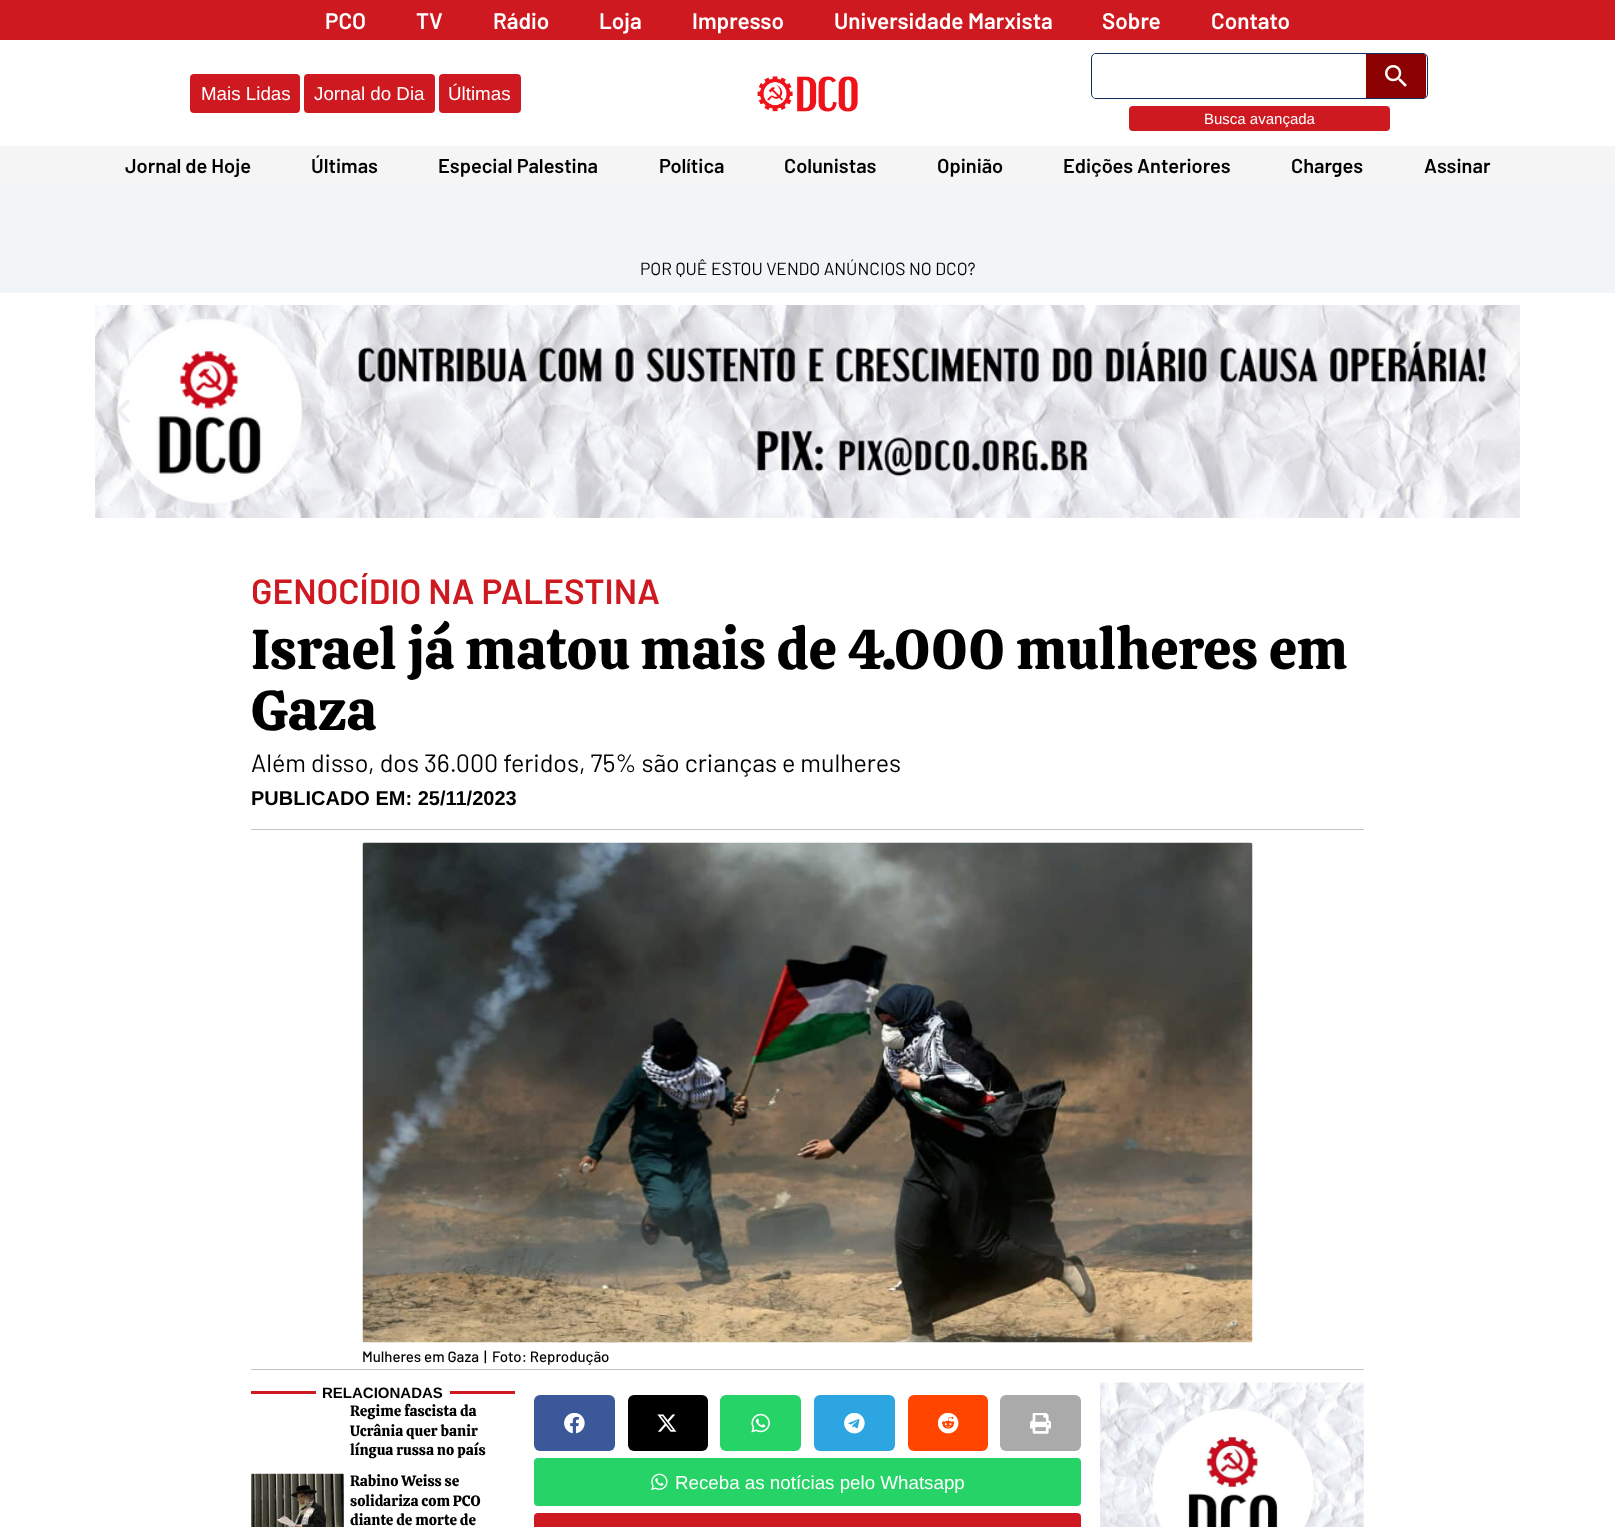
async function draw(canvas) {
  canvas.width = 1615
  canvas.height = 1527
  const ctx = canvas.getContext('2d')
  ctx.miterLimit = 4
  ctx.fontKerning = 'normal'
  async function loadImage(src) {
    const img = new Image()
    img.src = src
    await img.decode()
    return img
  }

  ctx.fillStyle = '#fff'
  ctx.fillRect(0, 0, 1615, 1527)
  ctx.fillStyle = '#ce1920'
  ctx.fillRect(0, 0, 1615, 40)
  ctx.font = '600 22.5px Barlow'
  ctx.fillStyle = '#fff'
  ctx.fillText('PCO', 325, 29)
  ctx.fillText('TV', 416, 29)
  ctx.fillText('Rádio', 493, 29)
  ctx.fillText('Loja', 599, 29)
  ctx.fillText('Impresso', 692, 29)
  ctx.fillText('Universidade Marxista', 834, 29)
  ctx.fillText('Sobre', 1102, 29)
  ctx.fillText('Contato', 1211, 29)
  ctx.fillStyle = '#ce1920'
  ctx.beginPath()
  ctx.roundRect(190, 74, 110, 39, 4)
  ctx.fill()
  ctx.font = '18.75px Liberation Sans'
  ctx.fillStyle = '#fff'
  ctx.fillText('Mais Lidas', 201, 100)
  ctx.fillStyle = '#ce1920'
  ctx.beginPath()
  ctx.roundRect(304, 74, 131, 39, 4)
  ctx.fill()
  ctx.fillStyle = '#fff'
  ctx.fillText('Jornal do Dia', 314, 100)
  ctx.fillStyle = '#ce1920'
  ctx.beginPath()
  ctx.roundRect(439, 74, 82, 39, 4)
  ctx.fill()
  ctx.fillStyle = '#fff'
  ctx.fillText('Últimas', 448, 100)
  ctx.drawImage(await loadImage('image0.png'), 757, 76, 101, 36)
  ctx.beginPath()
  ctx.roundRect(1091.5, 53.5, 336, 45, 4.5)
  ctx.strokeStyle = '#142d5c'
  ctx.stroke()
  ctx.fillStyle = '#0000000d'
  ctx.filter = 'blur(1px)'
  ctx.beginPath()
  ctx.rect(1093, 55, 273, 44)
  ctx.fill()
  ctx.filter = 'none'
  ctx.fillStyle = '#fff'
  ctx.beginPath()
  ctx.roundRect(1093, 54, 273, 44, [2.5, 0, 0, 2.5])
  ctx.fill()
  ctx.fillStyle = '#0000000d'
  ctx.filter = 'blur(1px)'
  ctx.beginPath()
  ctx.rect(1366, 55, 60, 44)
  ctx.fill()
  ctx.filter = 'none'
  ctx.fillStyle = '#8b0000'
  ctx.beginPath()
  ctx.roundRect(1366, 54, 60, 44, [0, 2.5, 2.5, 0])
  ctx.fill()
  ctx.drawImage(await loadImage('image1.png'), 1385, 65, 22, 22)
  ctx.fillStyle = '#ce1920'
  ctx.beginPath()
  ctx.roundRect(1129, 106, 261, 25, 4)
  ctx.fill()
  ctx.font = '15px Liberation Sans'
  ctx.fillStyle = '#fff'
  ctx.fillText('Busca avançada', 1204, 124)
  ctx.fillStyle = '#f5f5f5'
  ctx.fillRect(0, 146, 1615, 40)
  ctx.font = '600 20px Barlow'
  ctx.fillStyle = '#000'
  ctx.fillText('Jornal de Hoje', 125, 173)
  ctx.fillText('Últimas', 311, 173)
  ctx.fillText('Especial Palestina', 438, 173)
  ctx.fillText('Política', 659, 173)
  ctx.fillText('Colunistas', 784, 173)
  ctx.fillText('Opinião', 937, 173)
  ctx.fillText('Edições Anteriores', 1063, 173)
  ctx.fillText('Charges', 1291, 173)
  ctx.fillText('Assinar', 1424, 173)
  ctx.fillStyle = '#f2f5f7'
  ctx.fillRect(0, 186, 1615, 107)
  ctx.font = '17.5px Barlow'
  ctx.fillStyle = '#000'
  ctx.fillText('POR QUÊ ESTOU VENDO ANÚNCIOS NO DCO?', 640, 275)
  ctx.drawImage(await loadImage('image2.png'), 95, 305, 1425, 213)
  ctx.drawImage(await loadImage('image3.png'), 116, 399, 14, 24)
  ctx.drawImage(await loadImage('image4.png'), 1485, 400, 13, 16)
  ctx.font = '600 35px Barlow'
  ctx.fillStyle = '#ce1920'
  ctx.fillText('GENOCÍDIO NA PALESTINA', 251, 604)
  ctx.font = '56.25px Calistoga'
  ctx.fillStyle = '#000'
  ctx.fillText('Israel já matou mais de 4.000 mulheres em', 251, 669)
  ctx.fillText('Gaza', 251, 730)
  ctx.font = '25px Barlow'
  ctx.fillText('Além disso, dos 36.000 feridos, 75% são crianças e mulheres', 251, 772)
  ctx.font = 'bold 20px Liberation Sans'
  ctx.fillText('PUBLICADO EM: 25/11/2023', 251, 805)
  ctx.fillStyle = '#c3c3c3'
  ctx.fillRect(251, 829, 1113, 1)
  ctx.drawImage(await loadImage('image5.png'), 362, 842, 891, 501)
  ctx.font = '500 15px Barlow'
  ctx.fillStyle = '#000'
  ctx.fillText('Mulheres em Gaza', 362, 1362)
  ctx.fillText('|', 484, 1362)
  ctx.fillText('Foto: Reprodução', 492, 1362)
  ctx.fillStyle = '#c3c3c3'
  ctx.fillRect(251, 1369, 1113, 1)
  ctx.fillStyle = '#ce1920'
  ctx.fillRect(251, 1391, 65, 3)
  ctx.font = 'bold 15px Liberation Sans'
  ctx.fillStyle = '#000'
  ctx.fillText('RELACIONADAS', 322, 1398)
  ctx.fillStyle = '#ce1920'
  ctx.fillRect(450, 1391, 65, 3)
  ctx.font = '15px Calistoga'
  ctx.fillStyle = '#000'
  ctx.fillText('Regime fascista da', 350, 1416)
  ctx.fillText('Ucrânia quer banir', 350, 1436)
  ctx.fillText('língua russa no país', 350, 1455)
  ctx.drawImage(await loadImage('image6.png'), 251, 1473, 93, 54)
  ctx.fillText('Rabino Weiss se', 350, 1486)
  ctx.fillText('solidariza com PCO', 350, 1506)
  ctx.fillText('diante de morte de', 350, 1525)
  ctx.fillStyle = '#3b5998'
  ctx.beginPath()
  ctx.roundRect(534, 1395, 81, 56, 6)
  ctx.fill()
  ctx.drawImage(await loadImage('image7.png'), 564, 1413, 21, 21)
  ctx.fillStyle = '#000'
  ctx.beginPath()
  ctx.roundRect(628, 1395, 80, 56, 6)
  ctx.fill()
  ctx.drawImage(await loadImage('image8.png'), 657, 1414, 20, 18)
  ctx.fillStyle = '#25d366'
  ctx.beginPath()
  ctx.roundRect(720, 1395, 81, 56, 6)
  ctx.fill()
  ctx.drawImage(await loadImage('image9.png'), 751, 1413, 19, 20)
  ctx.fillStyle = '#2ca5e0'
  ctx.beginPath()
  ctx.roundRect(814, 1395, 81, 56, 6)
  ctx.fill()
  ctx.drawImage(await loadImage('image10.png'), 844, 1413, 21, 21)
  ctx.fillStyle = '#ff4500'
  ctx.beginPath()
  ctx.roundRect(908, 1395, 80, 56, 6)
  ctx.fill()
  ctx.drawImage(await loadImage('image11.png'), 938, 1413, 21, 21)
  ctx.fillStyle = '#aaa'
  ctx.beginPath()
  ctx.roundRect(1000, 1395, 81, 56, 6)
  ctx.fill()
  ctx.drawImage(await loadImage('image12.png'), 1030, 1413, 21, 21)
  ctx.fillStyle = '#25d366'
  ctx.beginPath()
  ctx.roundRect(534, 1458, 547, 48, 4)
  ctx.fill()
  ctx.drawImage(await loadImage('image13.png'), 651, 1473, 17, 17)
  ctx.font = '18.75px Liberation Sans'
  ctx.fillStyle = '#fff'
  ctx.fillText('Receba as notícias pelo Whatsapp', 675, 1489)
  ctx.fillStyle = '#ce1920'
  ctx.beginPath()
  ctx.roundRect(534, 1513, 547, 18, 4)
  ctx.fill()
  ctx.drawImage(await loadImage('image14.png'), 1100, 1382, 264, 145)
}

draw(document.querySelector('canvas'))
